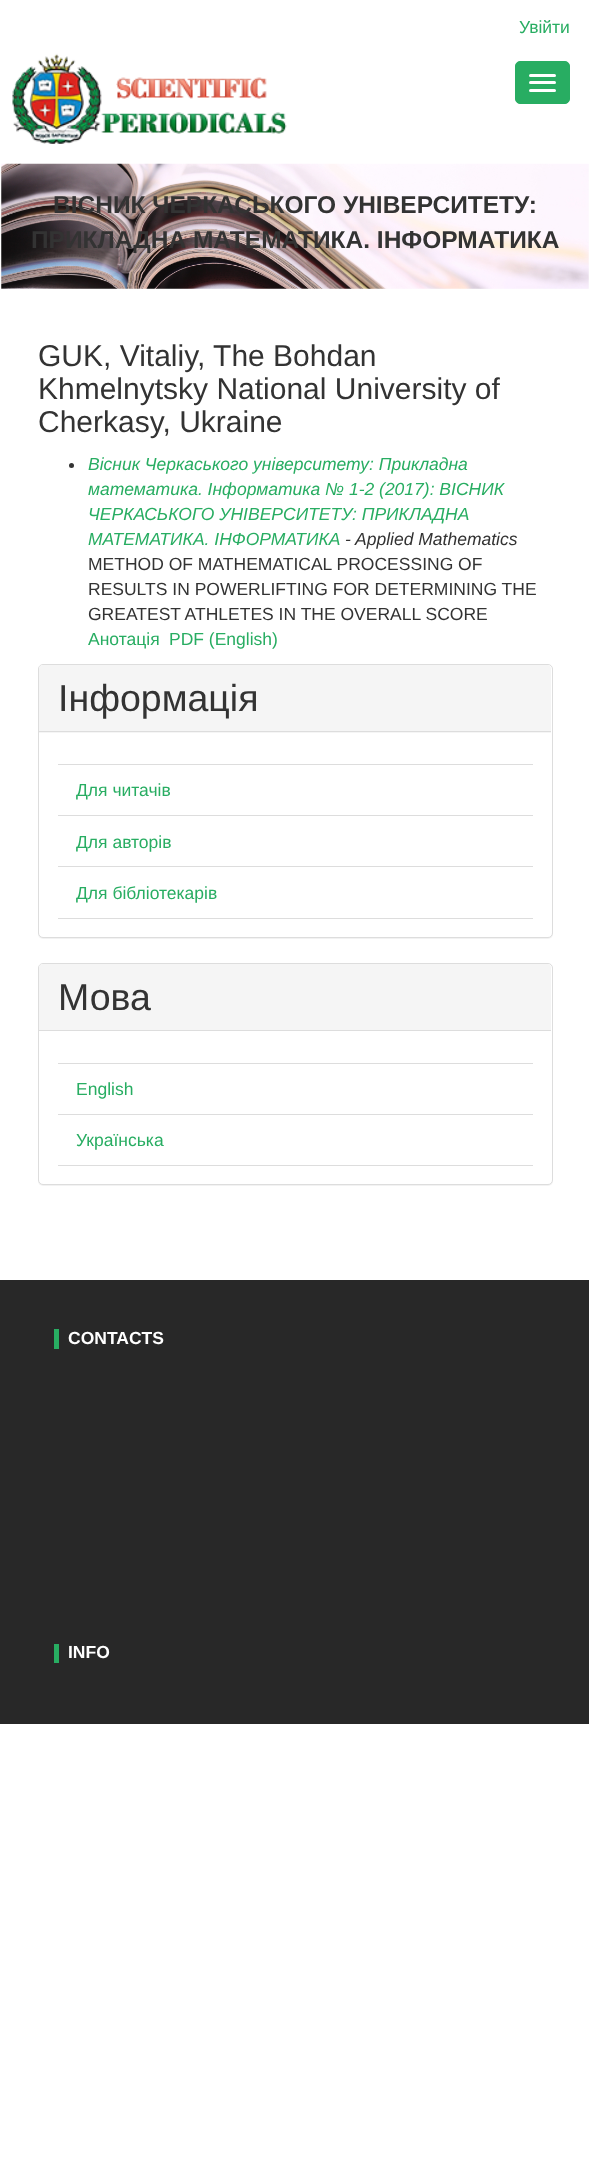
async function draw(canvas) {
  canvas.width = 589
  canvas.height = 2174
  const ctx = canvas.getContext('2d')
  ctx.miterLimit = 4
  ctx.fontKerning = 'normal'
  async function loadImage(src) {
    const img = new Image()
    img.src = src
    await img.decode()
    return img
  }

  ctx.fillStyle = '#fff'
  ctx.fillRect(0, 0, 589, 2174)
  ctx.font = '17.5px Liberation Sans'
  ctx.fillStyle = '#28ad62'
  ctx.fillText('Увійти', 519, 33)
  ctx.drawImage(await loadImage('image0.png'), 12, 53, 275, 91)
  ctx.beginPath()
  ctx.roundRect(515.5, 61.5, 54, 42, 4.5)
  ctx.fill()
  ctx.strokeStyle = '#28ad62'
  ctx.stroke()
  ctx.fillStyle = '#fff'
  ctx.beginPath()
  ctx.roundRect(529, 74, 27, 3, 1.5)
  ctx.fill()
  ctx.beginPath()
  ctx.roundRect(529, 81, 27, 3, 1.5)
  ctx.fill()
  ctx.beginPath()
  ctx.roundRect(529, 89, 27, 3, 1.5)
  ctx.fill()
  ctx.drawImage(await loadImage('image1.png'), 1, 163, 588, 126)
  ctx.font = 'bold 24.5px Liberation Sans'
  ctx.fillStyle = '#333'
  ctx.fillText('ВІСНИК ЧЕРКАСЬКОГО УНІВЕРСИТЕТУ:', 53, 213)
  ctx.fillText('ПРИКЛАДНА МАТЕМАТИКА. ІНФОРМАТИКА', 31, 248)
  ctx.font = '30px Liberation Sans'
  ctx.fillText('GUK, Vitaliy, The Bohdan', 38, 366)
  ctx.fillText('Khmelnytsky National University of', 38, 399)
  ctx.fillText('Cherkasy, Ukraine', 38, 432)
  ctx.beginPath()
  ctx.arc(71.5, 465.5, 2.5, 0, 2 * Math.PI)
  ctx.fill()
  ctx.font = 'italic 17.5px Liberation Sans'
  ctx.fillStyle = '#28ad62'
  ctx.fillText('Вісник Черкаського університету: Прикладна', 88, 470)
  ctx.fillText('математика. Інформатика № 1-2 (2017): ВІСНИК', 88, 495)
  ctx.fillText('ЧЕРКАСЬКОГО УНІВЕРСИТЕТУ: ПРИКЛАДНА', 88, 520)
  ctx.fillText('МАТЕМАТИКА. ІНФОРМАТИКА', 88, 545)
  ctx.fillStyle = '#333'
  ctx.fillText('- Applied Mathematics', 345, 545)
  ctx.font = '17.5px Liberation Sans'
  ctx.fillText('METHOD OF MATHEMATICAL PROCESSING OF', 88, 570)
  ctx.fillText('RESULTS IN POWERLIFTING FOR DETERMINING THE', 88, 595)
  ctx.fillText('GREATEST ATHLETES IN THE OVERALL SCORE', 88, 620)
  ctx.fillStyle = '#28ad62'
  ctx.fillText('Анотація', 88, 645)
  ctx.fillText('PDF (English)', 169, 645)
  ctx.fillStyle = '#0000000d'
  ctx.filter = 'blur(0.5px)'
  ctx.beginPath()
  ctx.roundRect(38, 665, 515, 274, 5)
  ctx.fill()
  ctx.filter = 'none'
  ctx.fillStyle = '#fff'
  ctx.beginPath()
  ctx.roundRect(38.5, 664.5, 514, 273, 4.5)
  ctx.fill()
  ctx.strokeStyle = '#ddd'
  ctx.stroke()
  ctx.fillStyle = '#f5f5f5'
  ctx.beginPath()
  ctx.roundRect(39, 665, 512, 68, [4, 4, 0, 0])
  ctx.fill()
  ctx.fillStyle = '#ddd'
  ctx.fillRect(39, 731, 512, 1)
  ctx.font = '37.5px Liberation Sans'
  ctx.fillStyle = '#333'
  ctx.fillText('Інформація', 58, 711)
  ctx.fillStyle = '#ddd'
  ctx.fillRect(58, 764, 475, 1)
  ctx.fillRect(58, 815, 475, 1)
  ctx.font = '17.5px Liberation Sans'
  ctx.fillStyle = '#28ad62'
  ctx.fillText('Для читачів', 76, 796)
  ctx.fillStyle = '#ddd'
  ctx.fillRect(58, 866, 475, 1)
  ctx.fillStyle = '#28ad62'
  ctx.fillText('Для авторів', 76, 848)
  ctx.fillStyle = '#ddd'
  ctx.fillRect(58, 918, 475, 1)
  ctx.fillStyle = '#28ad62'
  ctx.fillText('Для бібліотекарів', 76, 899)
  ctx.fillStyle = '#0000000d'
  ctx.filter = 'blur(0.5px)'
  ctx.beginPath()
  ctx.roundRect(38, 964, 515, 222, 5)
  ctx.fill()
  ctx.filter = 'none'
  ctx.fillStyle = '#fff'
  ctx.beginPath()
  ctx.roundRect(38.5, 963.5, 514, 221, 4.5)
  ctx.fill()
  ctx.stroke()
  ctx.fillStyle = '#f5f5f5'
  ctx.beginPath()
  ctx.roundRect(39, 964, 512, 67, [4, 4, 0, 0])
  ctx.fill()
  ctx.fillStyle = '#ddd'
  ctx.fillRect(39, 1030, 512, 1)
  ctx.font = '37.5px Liberation Sans'
  ctx.fillStyle = '#333'
  ctx.fillText('Мова', 58, 1010)
  ctx.fillStyle = '#ddd'
  ctx.fillRect(58, 1063, 475, 1)
  ctx.fillRect(58, 1114, 475, 1)
  ctx.font = '17.5px Liberation Sans'
  ctx.fillStyle = '#28ad62'
  ctx.fillText('English', 76, 1095)
  ctx.fillStyle = '#ddd'
  ctx.fillRect(58, 1165, 475, 1)
  ctx.fillStyle = '#28ad62'
  ctx.fillText('Українська', 76, 1146)
  ctx.fillStyle = '#282828'
  ctx.fillRect(0, 1280, 589, 444)
  ctx.fillStyle = '#28ad62'
  ctx.fillRect(54, 1329, 5, 20)
  ctx.font = 'bold 17.5px Liberation Sans'
  ctx.fillStyle = '#fff'
  ctx.fillText('CONTACTS', 68, 1344)
  ctx.fillStyle = '#28ad62'
  ctx.fillRect(54, 1644, 5, 19)
  ctx.fillStyle = '#fff'
  ctx.fillText('INFO', 68, 1658)
}

draw(document.querySelector('canvas'))
